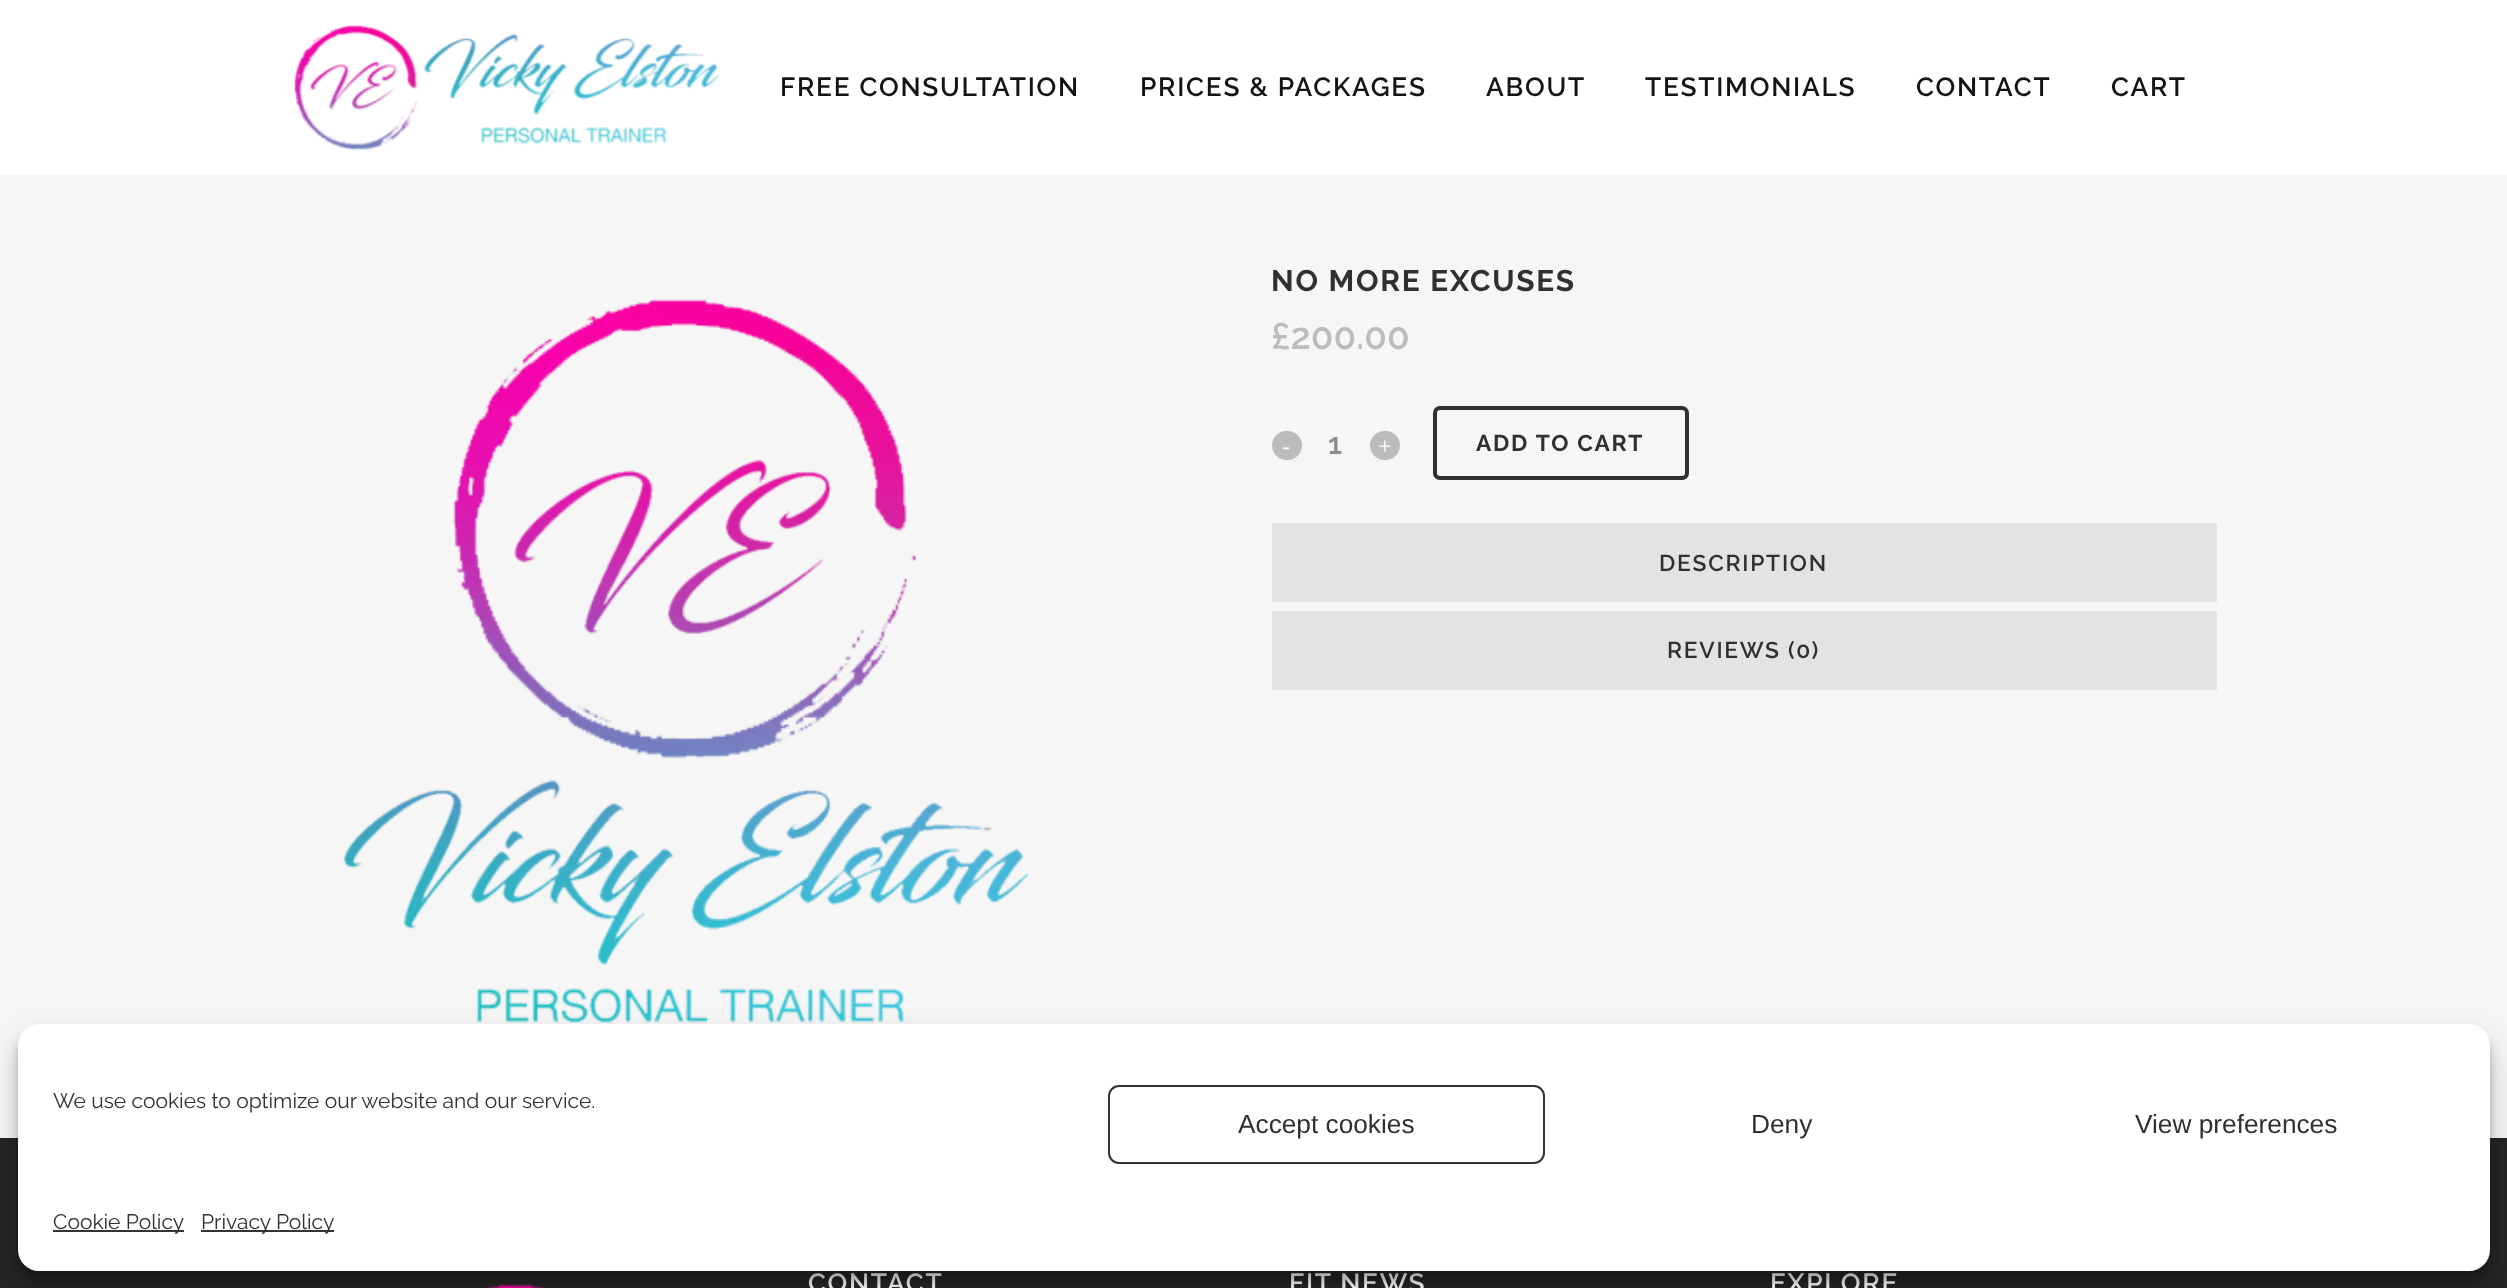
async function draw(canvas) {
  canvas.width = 2507
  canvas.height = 1288
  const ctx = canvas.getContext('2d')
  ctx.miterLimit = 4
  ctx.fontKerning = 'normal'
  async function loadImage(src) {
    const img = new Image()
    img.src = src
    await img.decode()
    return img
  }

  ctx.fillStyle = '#f6f6f6'
  ctx.fillRect(0, 0, 2507, 1288)
  ctx.fillStyle = '#fff'
  ctx.fillRect(0, 0, 2507, 175)
  ctx.drawImage(await loadImage('image0.png'), 294, 25, 426, 126)
  ctx.letterSpacing = '1.75px'
  ctx.font = '600 26.25px Raleway'
  ctx.fillStyle = '#141414'
  ctx.fillText('FREE CONSULTATION', 780, 96)
  ctx.fillText('PRICES & PACKAGES', 1140, 96)
  ctx.fillText('ABOUT', 1486, 96)
  ctx.fillText('TESTIMONIALS', 1645, 96)
  ctx.fillText('CONTACT', 1916, 96)
  ctx.fillText('CART', 2111, 96)
  ctx.drawImage(await loadImage('image1.png'), 342, 299, 687, 724)
  ctx.font = 'bold 29.75px Raleway'
  ctx.fillStyle = '#303030'
  ctx.fillText('NO MORE EXCUSES', 1271, 291)
  ctx.letterSpacing = '0px'
  ctx.font = '600 37px Raleway'
  ctx.fillStyle = '#bcbcbc'
  ctx.fillText('£200.00', 1271, 349)
  ctx.beginPath()
  ctx.roundRect(1272, 431, 30, 29, 14.5)
  ctx.fill()
  ctx.font = '24px Liberation Serif'
  ctx.fillStyle = '#fff'
  ctx.fillText('-', 1282, 454)
  ctx.font = '600 29.75px Raleway'
  ctx.fillStyle = '#8c8c8c'
  ctx.fillText('1', 1328, 454)
  ctx.fillStyle = '#bcbcbc'
  ctx.beginPath()
  ctx.roundRect(1370, 431, 30, 29, 14.5)
  ctx.fill()
  ctx.font = '24px Liberation Serif'
  ctx.fillStyle = '#fff'
  ctx.fillText('+', 1378, 454)
  ctx.beginPath()
  ctx.roundRect(1435, 408, 252, 70, 5)
  ctx.strokeStyle = '#303030'
  ctx.lineWidth = 4
  ctx.stroke()
  ctx.letterSpacing = '1.75px'
  ctx.font = 'bold 22.75px Raleway'
  ctx.fillStyle = '#303030'
  ctx.fillText('ADD TO CART', 1476, 451)
  ctx.fillStyle = '#e3e3e3'
  ctx.fillRect(1272, 523, 945, 79)
  ctx.font = '600 22.75px Raleway'
  ctx.fillStyle = '#303030'
  ctx.fillText('DESCRIPTION', 1659, 571)
  ctx.fillStyle = '#e3e3e3'
  ctx.fillRect(1272, 611, 945, 79)
  ctx.fillStyle = '#303030'
  ctx.fillText('REVIEWS (0)', 1667, 658)
  ctx.fillStyle = '#262626'
  ctx.fillRect(0, 1138, 2507, 150)
  ctx.drawImage(await loadImage('image2.png'), 485, 1284, 64, 4)
  ctx.font = '600 26.25px Raleway'
  ctx.fillStyle = '#fff'
  ctx.fillText('CONTACT', 808, 1292)
  ctx.fillText('FIT NEWS', 1289, 1292)
  ctx.fillText('EXPLORE', 1770, 1292)
  ctx.fillStyle = '#0000003b'
  ctx.filter = 'blur(5px)'
  ctx.beginPath()
  ctx.roundRect(18, 1034, 2472, 247, 21)
  ctx.fill()
  ctx.filter = 'none'
  ctx.fillStyle = '#00000030'
  ctx.filter = 'blur(17.5px)'
  ctx.beginPath()
  ctx.roundRect(18, 1041, 2472, 247, 21)
  ctx.fill()
  ctx.filter = 'none'
  ctx.fillStyle = '#fff'
  ctx.beginPath()
  ctx.roundRect(18, 1024, 2472, 247, 21)
  ctx.fill()
  ctx.letterSpacing = '0px'
  ctx.font = '21px Raleway'
  ctx.fillStyle = '#303030'
  ctx.fillText('We use cookies to optimize our website and our service.', 53, 1108)
  ctx.beginPath()
  ctx.roundRect(1109, 1086, 435, 77, 10)
  ctx.strokeStyle = '#333'
  ctx.lineWidth = 2
  ctx.stroke()
  ctx.font = '26.25px Liberation Sans'
  ctx.fillText('Accept cookies', 1238, 1133)
  ctx.fillText('Deny', 1751, 1133)
  ctx.fillText('View preferences', 2135, 1133)
  ctx.fillStyle = '#333'
  ctx.fillRect(53, 1230, 131, 2)
  ctx.font = '21px Raleway'
  ctx.fillStyle = '#303030'
  ctx.fillText('Cookie Policy', 53, 1229)
  ctx.fillStyle = '#333'
  ctx.fillRect(201, 1230, 133, 2)
  ctx.fillStyle = '#303030'
  ctx.fillText('Privacy Policy', 201, 1229)
}

draw(document.querySelector('canvas'))
